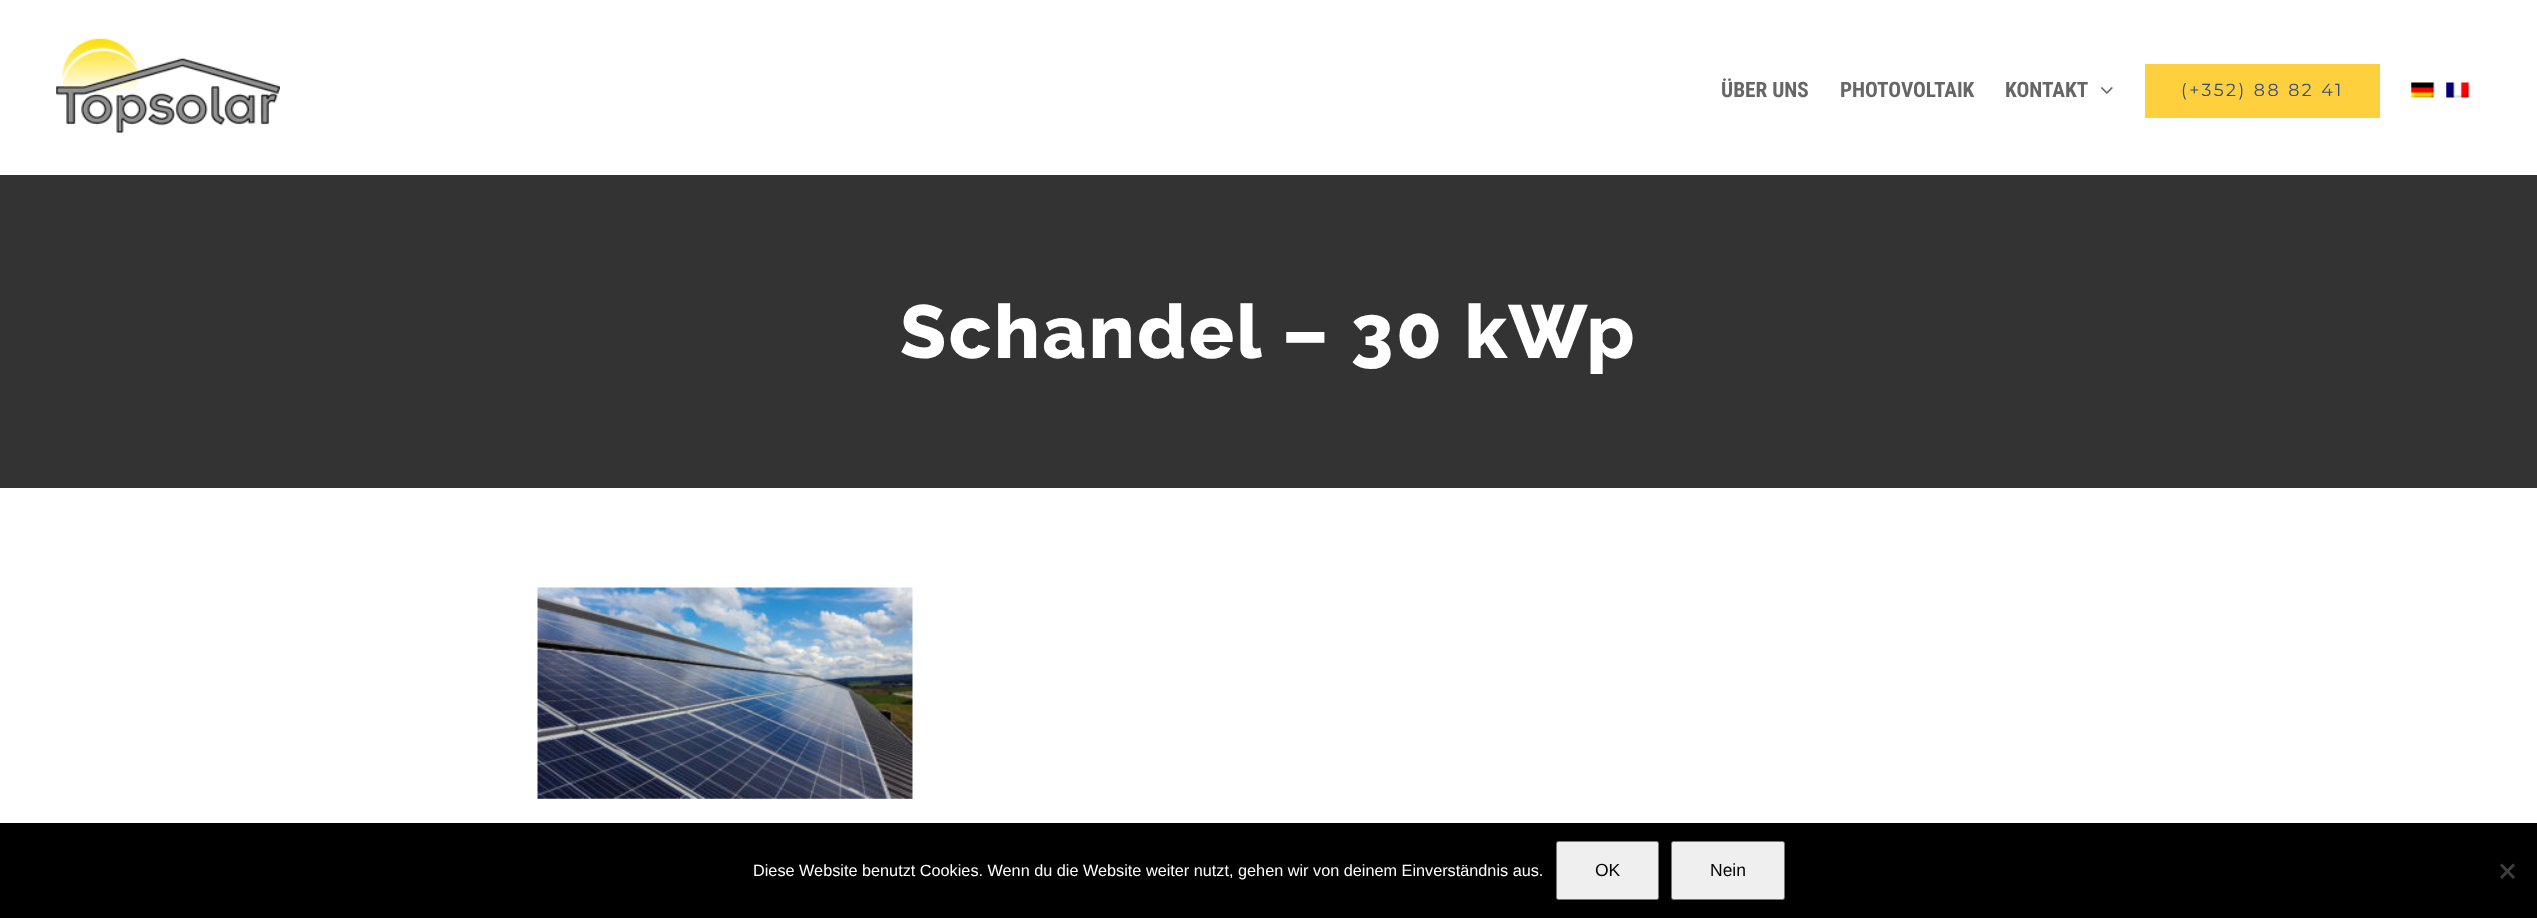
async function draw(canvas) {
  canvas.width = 2537
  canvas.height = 918
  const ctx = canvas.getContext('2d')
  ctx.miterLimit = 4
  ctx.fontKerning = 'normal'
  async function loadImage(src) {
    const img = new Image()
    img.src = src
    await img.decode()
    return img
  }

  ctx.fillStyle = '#fff'
  ctx.fillRect(0, 0, 2537, 918)
  ctx.drawImage(await loadImage('image0.png'), 56, 38, 224, 95)
  ctx.font = 'bold 21.25px Roboto Condensed'
  ctx.fillStyle = '#666'
  ctx.fillText('ÜBER UNS', 1721, 97)
  ctx.fillText('PHOTOVOLTAIK', 1840, 97)
  ctx.fillText('KONTAKT', 2005, 97)
  ctx.drawImage(await loadImage('image1.png'), 2101, 87, 12, 7)
  ctx.fillStyle = '#fed03d'
  ctx.fillRect(2145, 64, 235, 54)
  ctx.letterSpacing = '2.5px'
  ctx.font = '17.5px Montserrat'
  ctx.fillStyle = '#314b81'
  ctx.fillText('(+352) 88 82 41', 2181, 96)
  ctx.drawImage(await loadImage('image2.png'), 2411, 82, 24, 16)
  ctx.drawImage(await loadImage('image3.png'), 2446, 82, 24, 16)
  ctx.fillStyle = '#333'
  ctx.fillRect(0, 175, 2537, 313)
  ctx.font = '800 75px Raleway'
  ctx.fillStyle = '#fff'
  ctx.fillText('Schandel – 30 kWp', 900, 358)
  ctx.drawImage(await loadImage('image4.png'), 537, 587, 376, 212)
  ctx.fillStyle = '#000'
  ctx.fillRect(0, 823, 2537, 95)
  ctx.letterSpacing = '0px'
  ctx.font = '16.25px Liberation Sans'
  ctx.fillStyle = '#fff'
  ctx.fillText('Diese Website benutzt Cookies. Wenn du die Website weiter nutzt, gehen wir von deinem Einverständnis aus.', 753, 876)
  ctx.fillStyle = '#efefef'
  ctx.beginPath()
  ctx.roundRect(1556.5, 841.5, 102, 58, 2)
  ctx.fill()
  ctx.strokeStyle = '#767676'
  ctx.stroke()
  ctx.font = '17.5px Liberation Sans'
  ctx.fillStyle = '#000'
  ctx.fillText('OK', 1595, 876)
  ctx.fillStyle = '#efefef'
  ctx.beginPath()
  ctx.roundRect(1671.5, 841.5, 113, 58, 2)
  ctx.fill()
  ctx.stroke()
  ctx.fillStyle = '#000'
  ctx.fillText('Nein', 1710, 876)
  ctx.fillStyle = '#404040'
  ctx.beginPath()
  ctx.moveTo(2513, 863.5)
  ctx.lineTo(2515, 865.5)
  ctx.lineTo(2502, 879)
  ctx.lineTo(2500, 877)
  ctx.closePath()
  ctx.fill()
  ctx.beginPath()
  ctx.moveTo(2500, 865.5)
  ctx.lineTo(2502, 863.5)
  ctx.lineTo(2515, 877)
  ctx.lineTo(2513, 879)
  ctx.closePath()
  ctx.fill()
}

draw(document.querySelector('canvas'))
